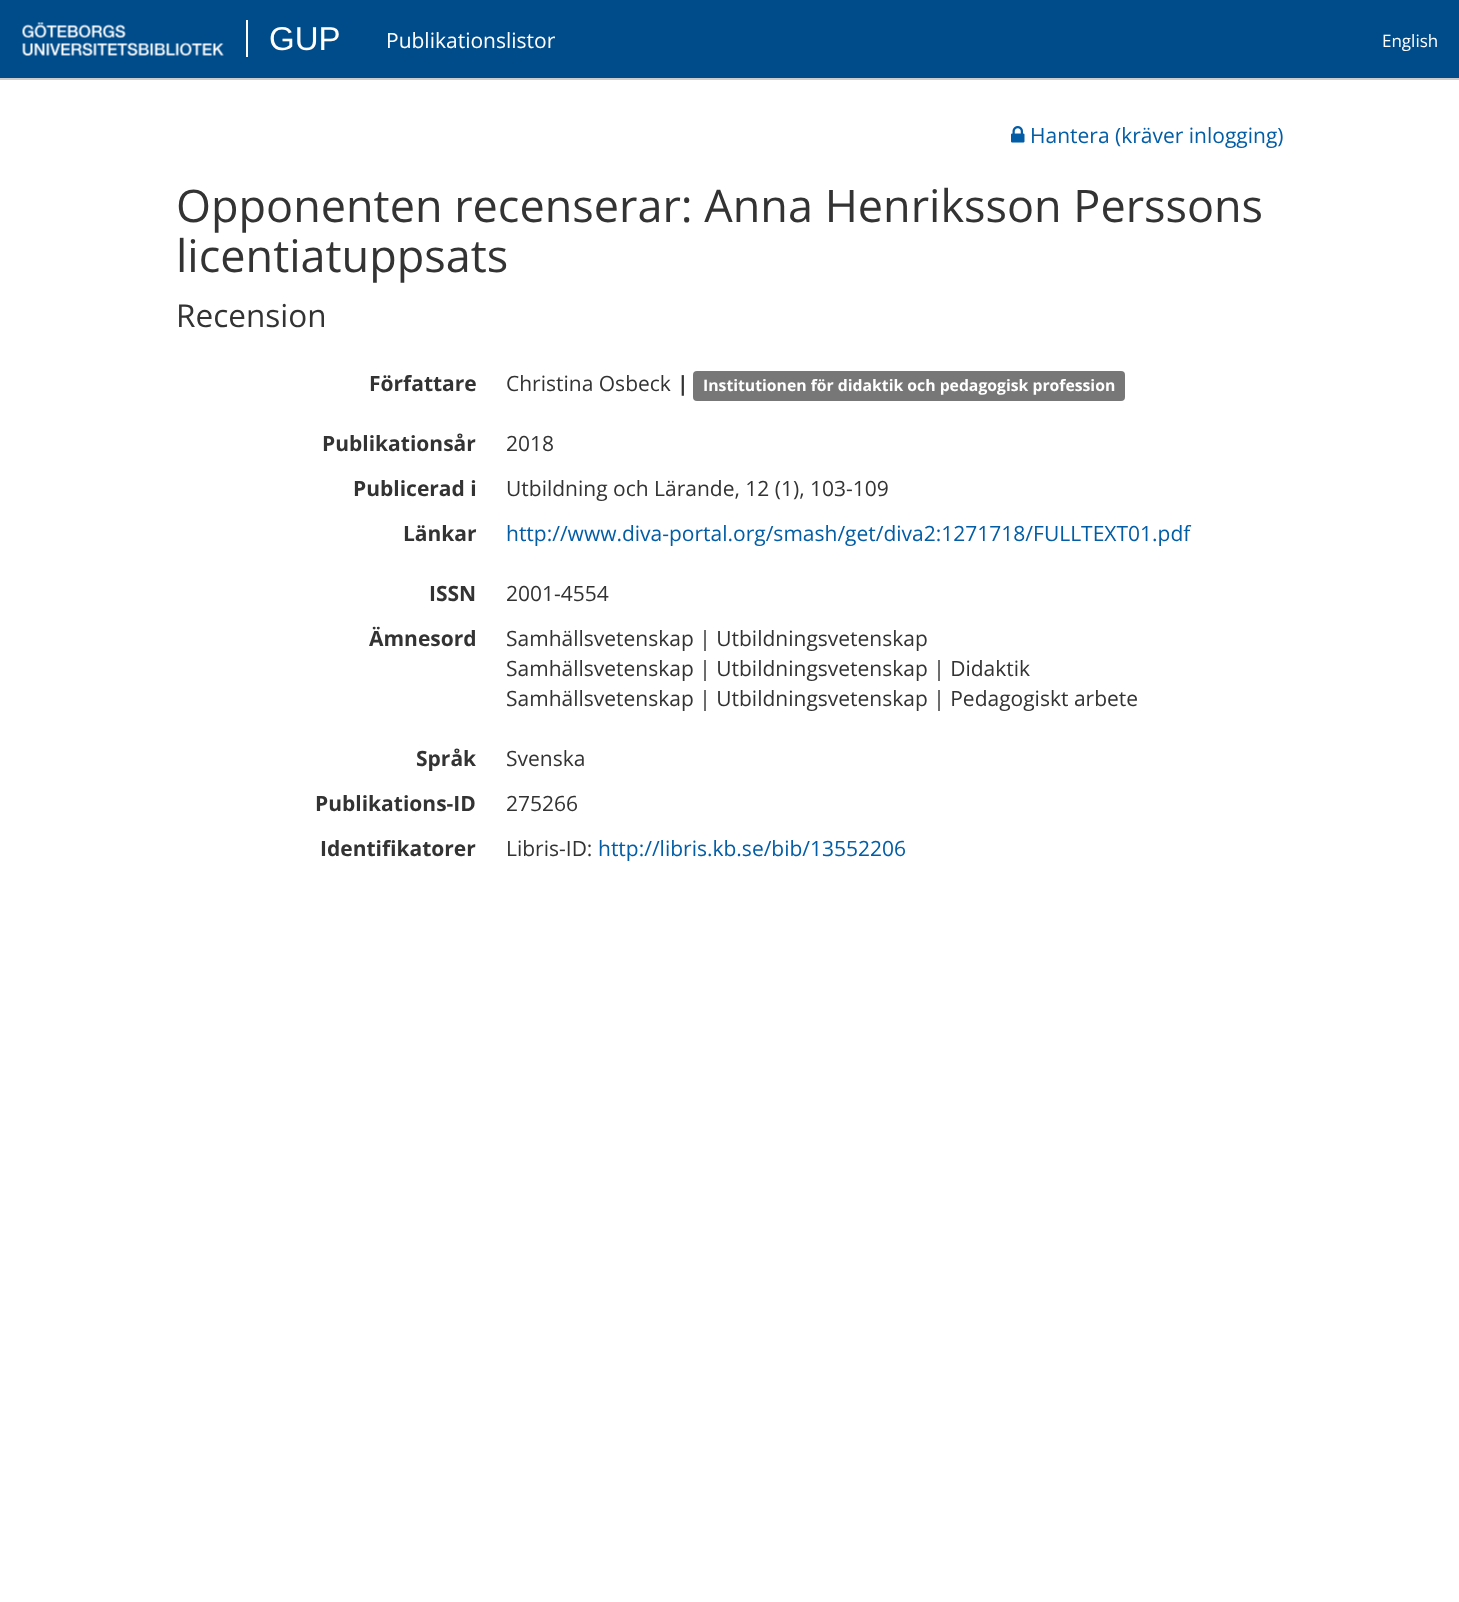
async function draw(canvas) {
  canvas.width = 1459
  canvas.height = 1602
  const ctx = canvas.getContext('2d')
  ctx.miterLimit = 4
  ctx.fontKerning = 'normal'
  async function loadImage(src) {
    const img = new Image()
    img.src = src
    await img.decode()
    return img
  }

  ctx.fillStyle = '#fff'
  ctx.fillRect(0, 0, 1459, 1602)
  ctx.fillStyle = '#004b89'
  ctx.fillRect(0, 0, 1459, 78)
  ctx.fillStyle = '#ccc'
  ctx.fillRect(0, 78, 1459, 2)
  ctx.drawImage(await loadImage('image0.png'), 22, 22, 202, 34)
  ctx.fillStyle = '#fff'
  ctx.fillRect(246, 20, 2, 37)
  ctx.font = '33px Liberation Sans'
  ctx.fillText('GUP', 269, 50)
  ctx.font = '21px Open Sans'
  ctx.fillText('Publikationslistor', 386, 48)
  ctx.font = '17px Open Sans'
  ctx.fillText('English', 1382, 47)
  ctx.drawImage(await loadImage('image1.png'), 1011, 126, 14, 17)
  ctx.font = '21px Open Sans'
  ctx.fillStyle = '#025da6'
  ctx.fillText('Hantera (kräver inlogging)', 1030, 143)
  ctx.font = '45px Open Sans'
  ctx.fillStyle = '#333'
  ctx.fillText('Opponenten recenserar: Anna Henriksson Perssons', 176, 222)
  ctx.fillText('licentiatuppsats', 176, 272)
  ctx.font = '31.5px Open Sans'
  ctx.fillText('Recension', 176, 327)
  ctx.font = 'bold 21px Open Sans'
  ctx.fillText('Författare', 369, 391)
  ctx.font = '21px Open Sans'
  ctx.fillText('Christina Osbeck', 506, 391)
  ctx.font = 'bold 21px Open Sans'
  ctx.fillText('|', 677, 391)
  ctx.fillStyle = '#777'
  ctx.beginPath()
  ctx.roundRect(693, 371, 432, 30, 4)
  ctx.fill()
  ctx.font = 'bold 15.75px Open Sans'
  ctx.fillStyle = '#fff'
  ctx.fillText('Institutionen för didaktik och pedagogisk profession', 703, 391)
  ctx.font = 'bold 21px Open Sans'
  ctx.fillStyle = '#333'
  ctx.fillText('Publikationsår', 322, 451)
  ctx.font = '21px Open Sans'
  ctx.fillText('2018', 506, 451)
  ctx.font = 'bold 21px Open Sans'
  ctx.fillText('Publicerad i', 353, 496)
  ctx.font = '21px Open Sans'
  ctx.fillText('Utbildning och Lärande, 12 (1), 103-109', 506, 496)
  ctx.font = 'bold 21px Open Sans'
  ctx.fillText('Länkar', 403, 541)
  ctx.font = '21px Open Sans'
  ctx.fillStyle = '#025da6'
  ctx.fillText('http://www.diva-portal.org/smash/get/diva2:1271718/FULLTEXT01.pdf', 506, 541)
  ctx.font = 'bold 21px Open Sans'
  ctx.fillStyle = '#333'
  ctx.fillText('ISSN', 429, 601)
  ctx.font = '21px Open Sans'
  ctx.fillText('2001-4554', 506, 601)
  ctx.font = 'bold 21px Open Sans'
  ctx.fillText('Ämnesord', 369, 646)
  ctx.font = '21px Open Sans'
  ctx.fillText('Samhällsvetenskap | Utbildningsvetenskap', 506, 646)
  ctx.fillText('Samhällsvetenskap | Utbildningsvetenskap | Didaktik', 506, 676)
  ctx.fillText('Samhällsvetenskap | Utbildningsvetenskap | Pedagogiskt arbete', 506, 706)
  ctx.font = 'bold 21px Open Sans'
  ctx.fillText('Språk', 416, 766)
  ctx.font = '21px Open Sans'
  ctx.fillText('Svenska', 506, 766)
  ctx.font = 'bold 21px Open Sans'
  ctx.fillText('Publikations-ID', 315, 811)
  ctx.font = '21px Open Sans'
  ctx.fillText('275266', 506, 811)
  ctx.font = 'bold 21px Open Sans'
  ctx.fillText('Identifikatorer', 320, 856)
  ctx.font = '21px Open Sans'
  ctx.fillText('Libris-ID:', 506, 856)
  ctx.fillStyle = '#025da6'
  ctx.fillText('http://libris.kb.se/bib/13552206', 598, 856)
}

draw(document.querySelector('canvas'))
